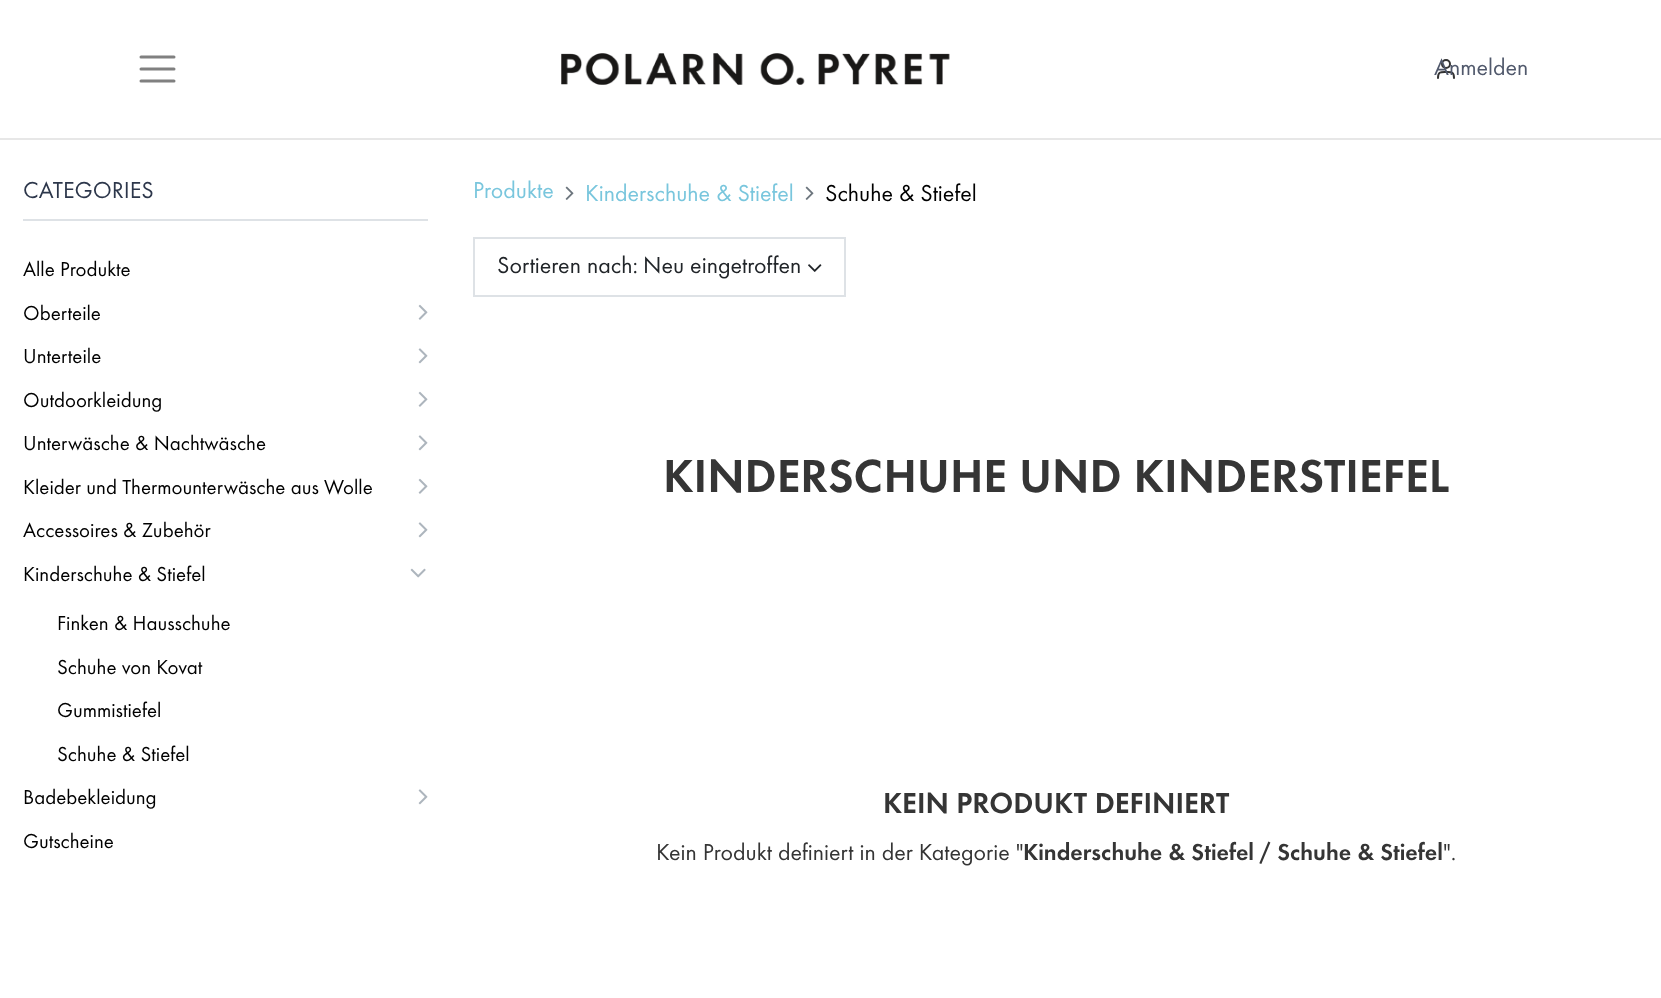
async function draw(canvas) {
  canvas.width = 1661
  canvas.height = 998
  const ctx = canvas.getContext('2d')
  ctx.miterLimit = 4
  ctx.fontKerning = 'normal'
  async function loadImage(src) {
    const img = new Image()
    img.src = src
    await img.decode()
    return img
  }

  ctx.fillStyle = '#fff'
  ctx.fillRect(0, 0, 1661, 998)
  ctx.fillStyle = '#e7e7e7'
  ctx.fillRect(0, 138, 1661, 2)
  ctx.beginPath()
  ctx.moveTo(141, 57)
  ctx.lineTo(174, 57)
  ctx.moveTo(141, 69)
  ctx.lineTo(174, 69)
  ctx.moveTo(141, 81)
  ctx.lineTo(174, 81)
  ctx.strokeStyle = '#808080'
  ctx.lineWidth = 3
  ctx.lineCap = 'round'
  ctx.stroke()
  ctx.drawImage(await loadImage('image0.png'), 561, 53, 389, 32)
  ctx.beginPath()
  ctx.moveTo(1454, 78)
  ctx.bezierCurveTo(1454, 71.5, 1451.5, 72, 1446, 72)
  ctx.bezierCurveTo(1440.5, 72, 1438, 71.5, 1438, 78)
  ctx.strokeStyle = '#333'
  ctx.lineWidth = 2
  ctx.lineJoin = 'round'
  ctx.stroke()
  ctx.beginPath()
  ctx.arc(1446, 64, 4, 0, 2 * Math.PI)
  ctx.stroke()
  ctx.font = '24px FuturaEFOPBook'
  ctx.fillStyle = '#51596c'
  ctx.fillText('Anmelden', 1434, 75)
  ctx.fillStyle = '#dee2e6'
  ctx.fillRect(23, 219, 405, 2)
  ctx.fillStyle = '#2d374b'
  ctx.fillText('CATEGORIES', 23, 198)
  ctx.font = '21px FuturaEFOPBook'
  ctx.fillStyle = '#000'
  ctx.fillText('Alle Produkte', 23, 276)
  ctx.fillText('Oberteile', 23, 320)
  ctx.drawImage(await loadImage('image1.png'), 418, 304, 10, 16)
  ctx.fillText('Unterteile', 23, 363)
  ctx.drawImage(await loadImage('image2.png'), 418, 348, 10, 16)
  ctx.fillText('Outdoorkleidung', 23, 407)
  ctx.drawImage(await loadImage('image1.png'), 418, 391, 10, 16)
  ctx.fillText('Unterwäsche & Nachtwäsche', 23, 450)
  ctx.drawImage(await loadImage('image2.png'), 418, 435, 10, 16)
  ctx.fillText('Kleider und Thermounterwäsche aus Wolle', 23, 494)
  ctx.drawImage(await loadImage('image1.png'), 418, 478, 10, 16)
  ctx.fillText('Accessoires & Zubehör', 23, 537)
  ctx.drawImage(await loadImage('image2.png'), 418, 522, 10, 16)
  ctx.fillText('Kinderschuhe & Stiefel', 23, 581)
  ctx.drawImage(await loadImage('image3.png'), 410, 568, 16, 10)
  ctx.fillText('Finken & Hausschuhe', 57, 630)
  ctx.fillText('Schuhe von Kovat', 57, 674)
  ctx.fillText('Gummistiefel', 57, 717)
  ctx.fillText('Schuhe & Stiefel', 57, 761)
  ctx.fillText('Badebekleidung', 23, 804)
  ctx.drawImage(await loadImage('image2.png'), 418, 789, 10, 16)
  ctx.fillText('Gutscheine', 23, 848)
  ctx.font = '24px FuturaEFOPBook'
  ctx.fillStyle = '#79c6dd'
  ctx.fillText('Produkte', 473, 198)
  ctx.drawImage(await loadImage('image4.png'), 565, 186, 9, 14)
  ctx.fillText('Kinderschuhe & Stiefel', 585, 201)
  ctx.drawImage(await loadImage('image4.png'), 805, 186, 9, 14)
  ctx.fillStyle = '#000'
  ctx.fillText('Schuhe & Stiefel', 825, 201)
  ctx.strokeStyle = '#dee2e6'
  ctx.lineJoin = 'miter'
  ctx.strokeRect(474, 238, 371, 58)
  ctx.fillStyle = '#212529'
  ctx.fillText('Sortieren nach:', 497, 273)
  ctx.fillText('Neu eingetroffen', 643, 273)
  ctx.drawImage(await loadImage('image5.png'), 808, 264, 14, 8)
  ctx.font = '600 48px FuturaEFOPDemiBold'
  ctx.fillStyle = '#353535'
  ctx.fillText('KINDERSCHUHE UND KINDERSTIEFEL', 663, 492)
  ctx.font = '600 30px FuturaEFOPDemiBold'
  ctx.fillText('KEIN PRODUKT DEFINIERT', 883, 813)
  ctx.font = '24px FuturaEFOPBook'
  ctx.fillText('Kein Produkt definiert in der Kategorie "', 656, 860)
  ctx.font = '600 24px FuturaEFOPDemiBold'
  ctx.fillText('Kinderschuhe & Stiefel / Schuhe & Stiefel', 1023, 860)
  ctx.font = '24px FuturaEFOPBook'
  ctx.fillText('".', 1443, 860)
}

draw(document.querySelector('canvas'))
